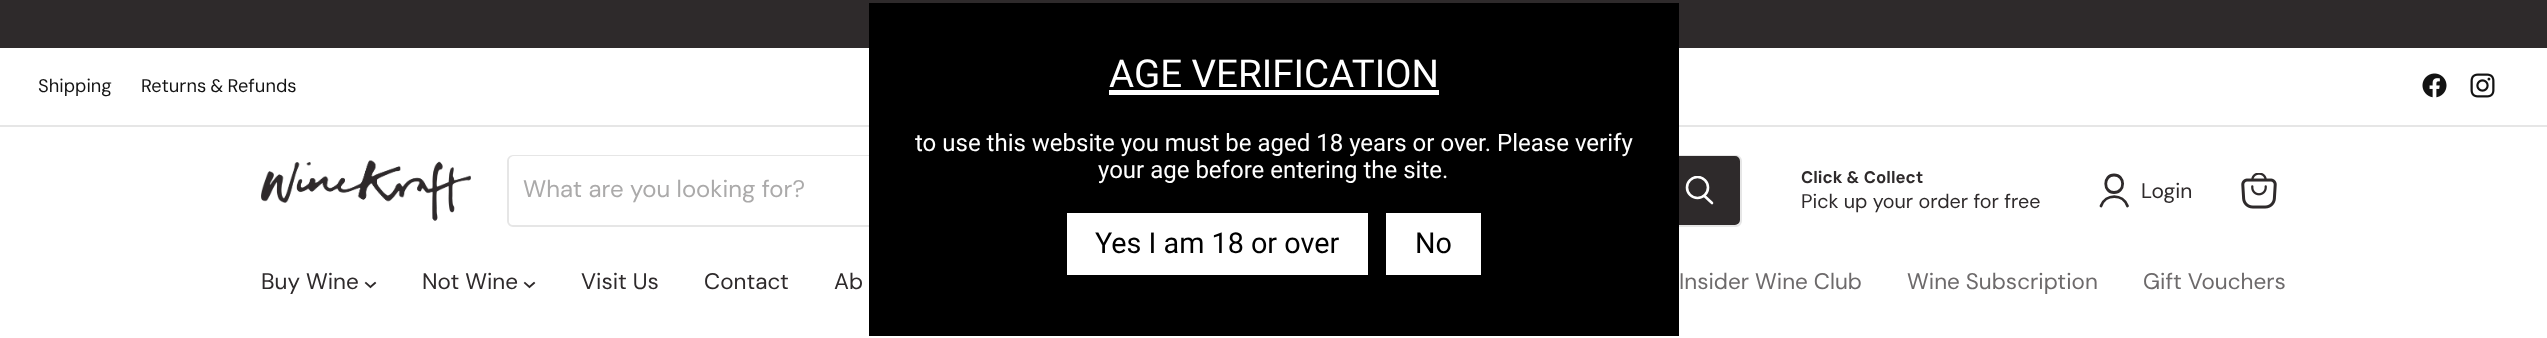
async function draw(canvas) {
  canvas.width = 2547
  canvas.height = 338
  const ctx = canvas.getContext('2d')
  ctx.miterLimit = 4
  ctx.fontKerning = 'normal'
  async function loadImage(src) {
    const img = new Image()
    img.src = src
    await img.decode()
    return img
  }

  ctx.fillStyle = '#fff'
  ctx.fillRect(0, 0, 2547, 338)
  ctx.fillStyle = '#2e2a2b'
  ctx.fillRect(0, 0, 2547, 48)
  ctx.fillStyle = '#e6e6e6'
  ctx.fillRect(0, 125, 2547, 2)
  ctx.font = '18.25px "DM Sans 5"'
  ctx.fillStyle = '#131313'
  ctx.fillText('Shipping', 38, 92)
  ctx.wordSpacing = '-1px'
  ctx.fillText('Returns & Refunds', 141, 92)
  ctx.drawImage(await loadImage('image0.png'), 2422, 73, 25, 25)
  ctx.drawImage(await loadImage('image1.png'), 2470, 73, 25, 25)
  ctx.beginPath()
  ctx.roundRect(508, 156, 1233, 70, 5)
  ctx.strokeStyle = '#e6e6e6'
  ctx.lineWidth = 2
  ctx.stroke()
  ctx.fillStyle = '#fff'
  ctx.beginPath()
  ctx.roundRect(509, 156, 1150, 69, [5, 0, 0, 5])
  ctx.fill()
  ctx.fillStyle = '#2e2a2b'
  ctx.beginPath()
  ctx.roundRect(1660, 157, 79, 67, [0, 4, 4, 0])
  ctx.fill()
  ctx.strokeStyle = '#2e2a2b'
  ctx.stroke()
  ctx.fillStyle = '#000'
  ctx.fillRect(869, 3, 810, 333)
  ctx.wordSpacing = '0px'
  ctx.font = '38.5px Roboto'
  ctx.fillStyle = '#fff'
  ctx.fillText('AGE VERIFICATION', 1109, 87)
  ctx.fillRect(1109, 90, 330, 5)
  ctx.font = '24px Roboto'
  ctx.fillText('to use this website you must be aged 18 years or over. Please verify', 915, 151)
  ctx.fillText('your age before entering the site.', 1098, 178)
  ctx.fillRect(1067, 213, 301, 62)
  ctx.font = '28.75px Roboto'
  ctx.fillStyle = '#000'
  ctx.fillText('Yes I am 18 or over', 1095, 253)
  ctx.fillStyle = '#fff'
  ctx.fillRect(1386, 213, 95, 62)
  ctx.fillStyle = '#000'
  ctx.fillText('No', 1415, 253)
  ctx.drawImage(await loadImage('image2.png'), 261, 160, 210, 61)
  ctx.font = '24px "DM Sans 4"'
  ctx.fillStyle = '#abaaaa'
  ctx.fillText('What are you looking for?', 523, 197)
  ctx.beginPath()
  ctx.moveTo(1712, 203)
  ctx.lineTo(1704.5, 196)
  ctx.strokeStyle = '#fff'
  ctx.lineWidth = 2.6
  ctx.lineCap = 'round'
  ctx.stroke()
  ctx.save()
  ctx.beginPath()
  ctx.rect(1685, 176, 30, 31)
  ctx.clip()
  ctx.beginPath()
  ctx.arc(1697.5, 187.5, 10.5, 0, 2 * Math.PI)
  ctx.stroke()
  ctx.restore()
  ctx.font = 'bold 16.75px DM Sans'
  ctx.fillStyle = '#2e2a2b'
  ctx.fillText('Click & Collect', 1801, 183)
  ctx.font = '19.75px "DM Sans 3"'
  ctx.fillText('Pick up your order for free', 1801, 208)
  ctx.beginPath()
  ctx.moveTo(2114, 192.5)
  ctx.bezierCurveTo(2125.5, 192.5, 2125.5, 175, 2114, 175)
  ctx.bezierCurveTo(2103, 175, 2103, 192.5, 2114, 192.5)
  ctx.closePath()
  ctx.moveTo(2127.5, 206)
  ctx.bezierCurveTo(2123, 193.5, 2105.5, 193.5, 2101, 206)
  ctx.strokeStyle = '#2e2a2b'
  ctx.lineWidth = 2.8
  ctx.lineJoin = 'round'
  ctx.stroke()
  ctx.font = '21px "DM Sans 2"'
  ctx.fillText('Login', 2141, 198)
  ctx.drawImage(await loadImage('image3.png'), 2241, 173, 36, 36)
  ctx.font = '22.5px DM Sans'
  ctx.fillText('Buy Wine', 261, 289)
  ctx.beginPath()
  ctx.moveTo(370.5, 287)
  ctx.lineTo(375, 283)
  ctx.moveTo(370.5, 287)
  ctx.lineTo(366, 283)
  ctx.lineWidth = 1.9
  ctx.lineCap = 'square'
  ctx.lineJoin = 'miter'
  ctx.stroke()
  ctx.fillText('Not Wine', 422, 289)
  ctx.beginPath()
  ctx.moveTo(529.5, 287)
  ctx.lineTo(534, 283)
  ctx.moveTo(529.5, 287)
  ctx.lineTo(525, 283)
  ctx.stroke()
  ctx.fillText('Visit Us', 581, 289)
  ctx.fillText('Contact', 704, 289)
  ctx.fillText('Ab', 834, 289)
  ctx.fillStyle = '#6d6a6b'
  ctx.fillText('Insider Wine Club', 1679, 289)
  ctx.fillText('Wine Subscription', 1907, 289)
  ctx.fillText('Gift Vouchers', 2143, 289)
}

draw(document.querySelector('canvas'))
